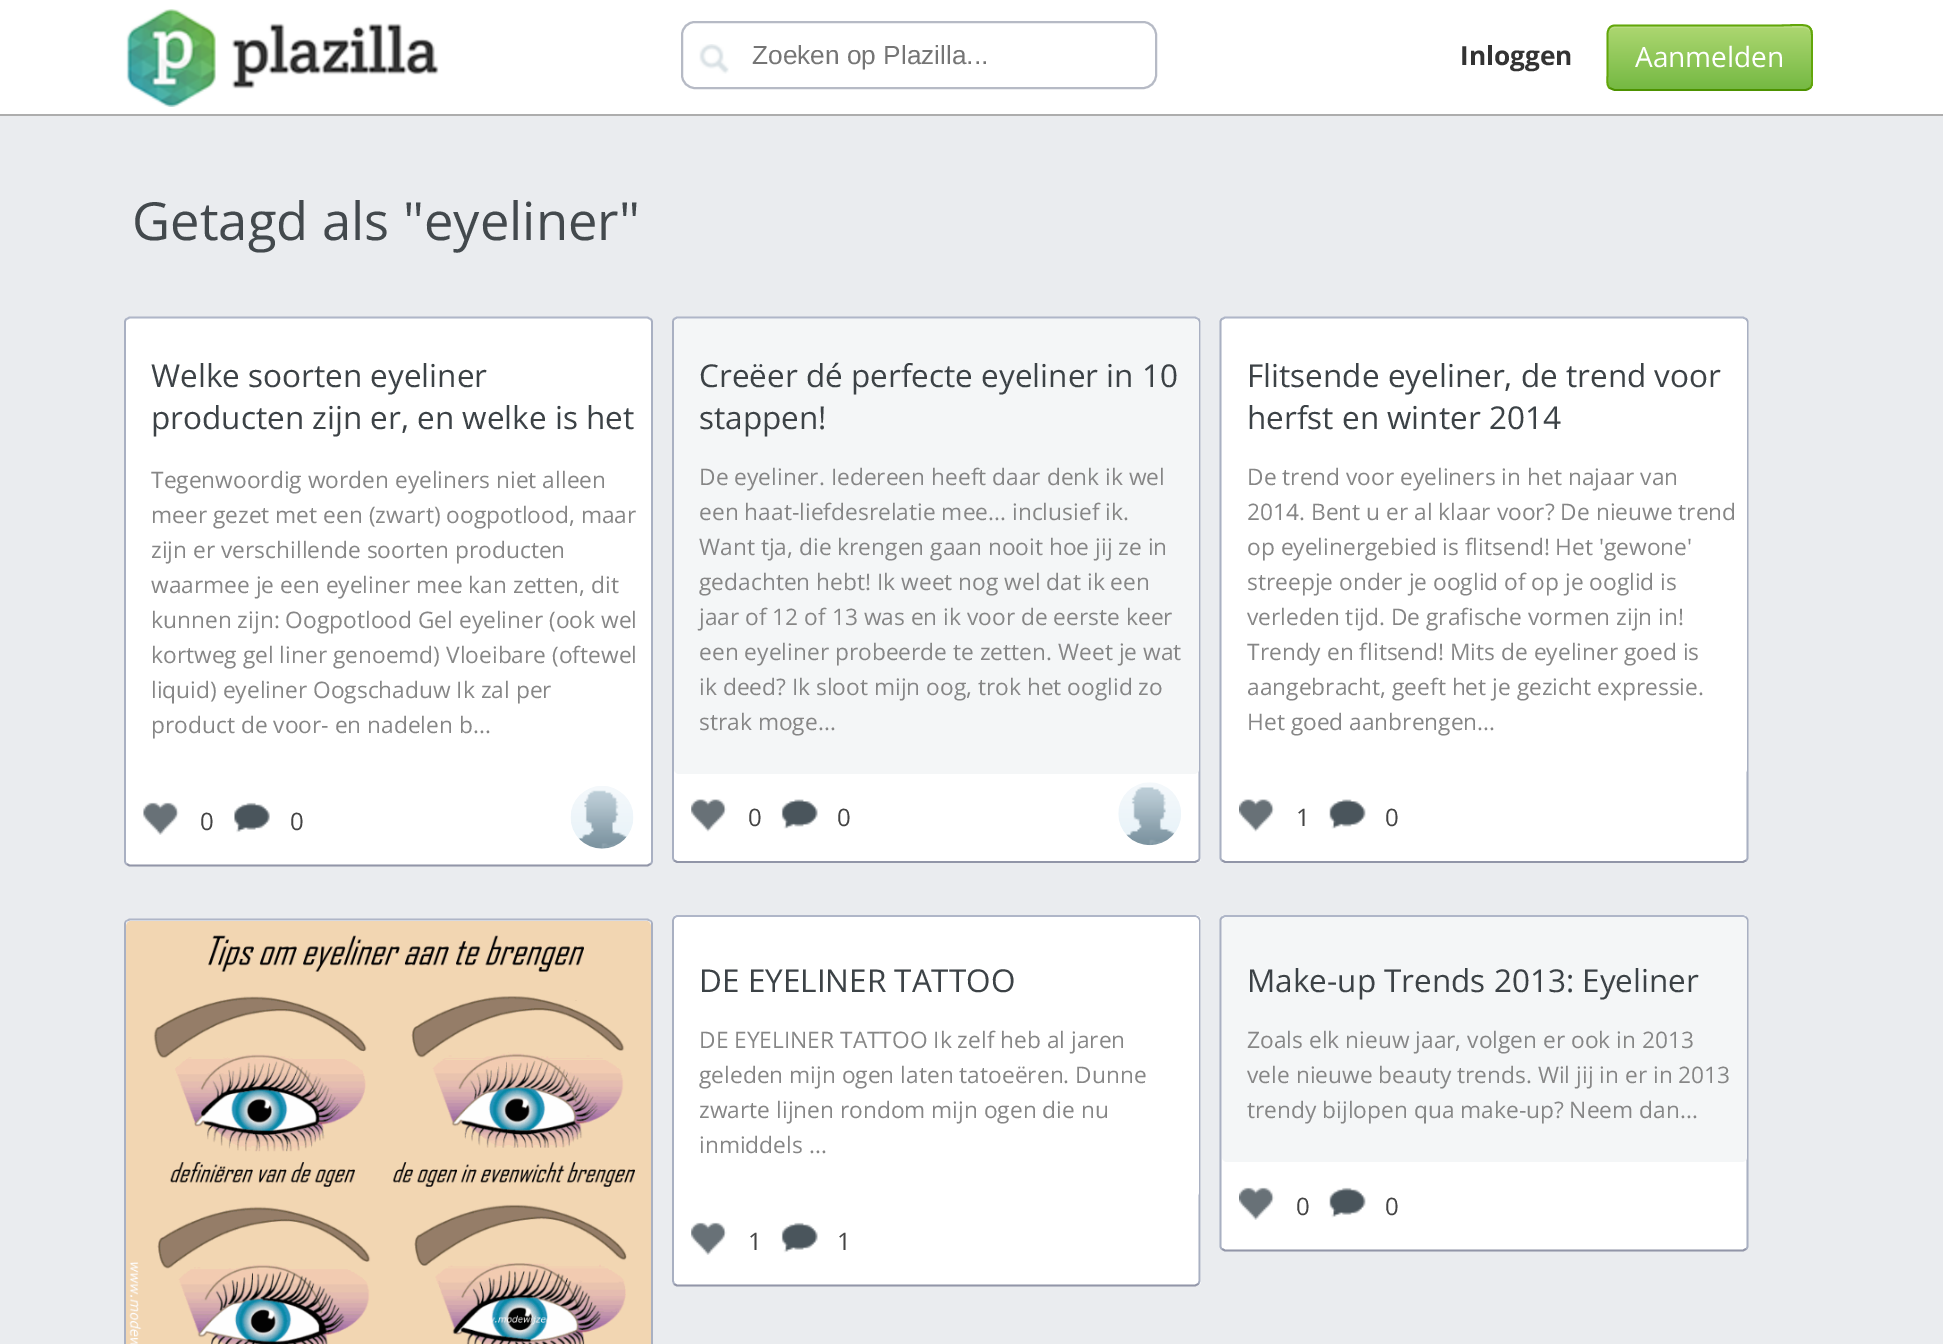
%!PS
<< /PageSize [1943 1344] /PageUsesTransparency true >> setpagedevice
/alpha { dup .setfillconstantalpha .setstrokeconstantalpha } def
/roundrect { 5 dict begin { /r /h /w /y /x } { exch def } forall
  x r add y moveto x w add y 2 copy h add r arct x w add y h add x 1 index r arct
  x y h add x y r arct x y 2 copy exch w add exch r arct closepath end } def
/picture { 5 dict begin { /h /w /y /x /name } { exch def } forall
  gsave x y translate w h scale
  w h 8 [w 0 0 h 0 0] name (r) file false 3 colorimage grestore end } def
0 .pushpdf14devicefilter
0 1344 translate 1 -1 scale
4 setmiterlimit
0.918 0.925 0.937 setrgbcolor
0 0 1943 1344 rectfill
1 setgray
0 0 1943 114 rectfill
0.678 setgray
0 114 1943 2 rectfill
(img1.rgb) 126 9 313 98 picture
0.714 0.729 0.773 setrgbcolor
2 setlinewidth
682 22 474 66 13 roundrect stroke
(img2.rgb) 699 44 30 30 picture
/LiberationSans-Regular [26.25 0 0 -26.25 0 0] selectfont
0.459 setgray
752 64 moveto (Zoeken op Plazilla...) show
/OpenSans-Bold [26.25 0 0 -26.25 0 0] selectfont
0.2 setgray
1460 65 moveto (Inloggen) show
gsave
1607 25 206 66 9 roundrect clip newpath
gsave newpath 1607 26 moveto 1813 26 lineto 1813 89 lineto 1607 89 lineto closepath clip newpath
<< /ShadingType 2 /ColorSpace /DeviceRGB /Coords [1710 26 1710 89] /Extend [true true] /Function << /FunctionType 2 /Domain [0 1] /C0 [0.678 0.843 0.443] /C1 [0.459 0.725 0.263] /N 1 >> >> shfill grestore
grestore
0.15 alpha
1 setgray
newpath 1615 28 moveto 1804 28 lineto 1808 28 1811 31 1811 35 curveto 1811 33 lineto 1811 29 1808 26 1804 26 curveto 1615 26 lineto 1611 26 1608 29 1608 33 curveto 1608 35 lineto 1608 31 1611 28 1615 28 curveto closepath fill
1 alpha
0.302 0.573 0 setrgbcolor
1.8 setlinewidth
newpath 1810 88 moveto 1808.5 89 1807 90 1805 90 curveto 1614.5 90 lineto 1609.5 88 lineto stroke
gsave
1425 9 388 121 rectclip
0.384 0.651 0.039 setrgbcolor
newpath 1609.5 88 moveto 1606 84.5 1607.5 78.5 1607.5 74 curveto 1607.5 41.5 lineto 1607.5 35.5 1606 25.5 1615 25.5 curveto 1773 25.5 lineto 1816.5 25.5 1812 18 1812 58 curveto 1812 74 lineto 1812 78.5 1813.5 84.5 1810 88 curveto stroke
grestore
/OpenSans-Regular [28 0 0 -28 0 0] selectfont
1 setgray
1635 67 moveto (Aanmelden) show
/OpenSans-Regular [52.5 0 0 -52.5 0 0] selectfont
0.263 0.286 0.302 setrgbcolor
132 240 moveto (Getagd als "eyeliner") show
1 setgray
124 317 529 549 5 roundrect fill
0.686 0.714 0.784 setrgbcolor
newpath 126.5 319 moveto 129.5 317.5 lineto 647.5 317.5 lineto 650.5 319 lineto stroke
0.663 0.69 0.761 setrgbcolor
newpath 650.5 319 moveto 651.5 319.5 652 321 652 322 curveto 652 861 lineto 652 862 651.5 863.5 650.5 864 curveto stroke
0.573 0.588 0.659 setrgbcolor
newpath 650.5 864 moveto 647.5 865.5 lineto 129.5 865.5 lineto 126.5 864 lineto stroke
0.663 0.69 0.761 setrgbcolor
newpath 126.5 864 moveto 125.5 863.5 125 862 125 861 curveto 125 322 lineto 125 321 125.5 319.5 126.5 319 curveto stroke
/OpenSans-Regular [31.5 0 0 -31.5 0 0] selectfont
0.235 0.259 0.275 setrgbcolor
151 387 moveto (Welke soorten eyeliner) show
151 429 moveto (producten zijn er, en welke is het) show
/OpenSans-Regular [22.75 0 0 -22.75 0 0] selectfont
0.525 setgray
151 488 moveto (Tegenwoordig worden eyeliners niet alleen) show
151 523 moveto (meer gezet met een \(zwart\) oogpotlood, maar) show
151 558 moveto (zijn er verschillende soorten producten) show
151 593 moveto (waarmee je een eyeliner mee kan zetten, dit) show
151 628 moveto (kunnen zijn: Oogpotlood Gel eyeliner \(ook wel) show
151 663 moveto (kortweg gel liner genoemd\) Vloeibare \(oftewel) show
151 698 moveto (liquid\) eyeliner Oogschaduw Ik zal per) show
151 733 moveto (product de voor- en nadelen b...) show
(img3.rgb) 143 802 36 33 picture
/OpenSans-Regular [24 0 0 -24 0 0] selectfont
0.267 setgray
200 830 moveto (0) show
(img4.rgb) 234 802 36 31 picture
290 830 moveto (0) show
(img5.rgb) 570 786 64 63 picture
1 setgray
672 317 529 546 5 roundrect fill
0.686 0.714 0.784 setrgbcolor
newpath 674 319 moveto 677 317.5 lineto 1195 317.5 lineto 1198.5 319 lineto stroke
0.663 0.69 0.761 setrgbcolor
newpath 1198.5 319 moveto 1199 319.5 1199.5 321 1199.5 322 curveto 1199.5 857.5 lineto 1199.5 858.5 1199 860 1198.5 860.5 curveto stroke
0.573 0.588 0.659 setrgbcolor
newpath 1198.5 860.5 moveto 1195 862 lineto 677 862 lineto 674 860.5 lineto stroke
0.663 0.69 0.761 setrgbcolor
newpath 674 860.5 moveto 673.5 860 673 858.5 673 857.5 curveto 673 322 lineto 673 321 673.5 319.5 674 319 curveto stroke
gsave
674 319 525 542 4 roundrect clip newpath
0.957 0.965 0.969 setrgbcolor
674 319 525 455 5 roundrect fill
grestore
/OpenSans-Regular [31.5 0 0 -31.5 0 0] selectfont
0.235 0.259 0.275 setrgbcolor
699 387 moveto (Creëer dé perfecte eyeliner in 10) show
699 429 moveto (stappen!) show
/OpenSans-Regular [22.75 0 0 -22.75 0 0] selectfont
0.525 setgray
699 485 moveto (De eyeliner. Iedereen heeft daar denk ik wel) show
699 520 moveto (een haat-liefdesrelatie mee... inclusief ik.) show
699 555 moveto (Want tja, die krengen gaan nooit hoe jij ze in) show
699 590 moveto (gedachten hebt! Ik weet nog wel dat ik een) show
699 625 moveto (jaar of 12 of 13 was en ik voor de eerste keer) show
699 660 moveto (een eyeliner probeerde te zetten. Weet je wat) show
699 695 moveto (ik deed? Ik sloot mijn oog, trok het ooglid zo) show
699 730 moveto (strak moge...) show
(img6.rgb) 691 799 36 33 picture
/OpenSans-Regular [24 0 0 -24 0 0] selectfont
0.267 setgray
748 826 moveto (0) show
(img7.rgb) 781 799 37 30 picture
837 826 moveto (0) show
(img8.rgb) 1118 782 63 64 picture
1 setgray
1220 317 528 546 5 roundrect fill
0.686 0.714 0.784 setrgbcolor
newpath 1222 319 moveto 1225 317.5 lineto 1743 317.5 lineto 1746 319 lineto stroke
0.663 0.69 0.761 setrgbcolor
newpath 1746 319 moveto 1747 319.5 1747.5 321 1747.5 322 curveto 1747.5 857.5 lineto 1747.5 858.5 1747 860 1746 860.5 curveto stroke
0.573 0.588 0.659 setrgbcolor
newpath 1746 860.5 moveto 1743 862 lineto 1225 862 lineto 1222 860.5 lineto stroke
0.663 0.69 0.761 setrgbcolor
newpath 1222 860.5 moveto 1221 860 1220.5 858.5 1220.5 857.5 curveto 1220.5 322 lineto 1220.5 321 1221 319.5 1222 319 curveto stroke
gsave
1222 319 525 542 4 roundrect clip newpath
1 setgray
1222 319 525 455 5 roundrect fill
grestore
/OpenSans-Regular [31.5 0 0 -31.5 0 0] selectfont
0.235 0.259 0.275 setrgbcolor
1247 387 moveto (Flitsende eyeliner, de trend voor) show
1247 429 moveto (herfst en winter 2014) show
/OpenSans-Regular [22.75 0 0 -22.75 0 0] selectfont
0.525 setgray
1247 485 moveto (De trend voor eyeliners in het najaar van) show
1247 520 moveto (2014. Bent u er al klaar voor? De nieuwe trend) show
1247 555 moveto (op eyelinergebied is flitsend! Het 'gewone') show
1247 590 moveto (streepje onder je ooglid of op je ooglid is) show
1247 625 moveto (verleden tijd. De grafische vormen zijn in!) show
1247 660 moveto (Trendy en flitsend! Mits de eyeliner goed is) show
1247 695 moveto (aangebracht, geeft het je gezicht expressie.) show
1247 730 moveto (Het goed aanbrengen...) show
(img9.rgb) 1239 799 36 33 picture
/OpenSans-Regular [24 0 0 -24 0 0] selectfont
0.267 setgray
1296 826 moveto (1) show
(img10.rgb) 1329 799 37 30 picture
1385 826 moveto (0) show
1 setgray
124 919 529 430 5 roundrect fill
0.686 0.714 0.784 setrgbcolor
newpath 126.5 921 moveto 129.5 919.5 lineto 647.5 919.5 lineto 650.5 921 lineto stroke
0.663 0.69 0.761 setrgbcolor
newpath 650.5 921 moveto 651.5 921.5 652 923 652 924 curveto 652 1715 lineto 652 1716 651.5 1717.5 650.5 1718 curveto stroke
newpath 126.5 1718 moveto 125.5 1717.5 125 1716 125 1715 curveto 125 924 lineto 125 923 125.5 921.5 126.5 921 curveto stroke
(img11.rgb) 126 921 525 423 picture
1 setgray
672 915 529 371 5 roundrect fill
0.686 0.714 0.784 setrgbcolor
newpath 674 917.5 moveto 677 916 lineto 1195 916 lineto 1198.5 917.5 lineto stroke
0.663 0.69 0.761 setrgbcolor
newpath 1198.5 917.5 moveto 1199.5 920.5 lineto 1199.5 1281 lineto 1198.5 1284 lineto stroke
0.573 0.588 0.659 setrgbcolor
newpath 1198.5 1284 moveto 1195 1285.5 lineto 677 1285.5 lineto 674 1284 lineto stroke
0.663 0.69 0.761 setrgbcolor
newpath 674 1284 moveto 673 1281 lineto 673 920.5 lineto 674 917.5 lineto stroke
gsave
674 917 525 368 4 roundrect clip newpath
1 setgray
674 917 525 280 5 roundrect fill
grestore
/OpenSans-Regular [31.5 0 0 -31.5 0 0] selectfont
0.235 0.259 0.275 setrgbcolor
699 992 moveto (DE EYELINER TATTOO) show
/OpenSans-Regular [22.75 0 0 -22.75 0 0] selectfont
0.525 setgray
699 1048 moveto (DE EYELINER TATTOO Ik zelf heb al jaren) show
699 1083 moveto (geleden mijn ogen laten tatoeëren. Dunne) show
699 1118 moveto (zwarte lijnen rondom mijn ogen die nu) show
699 1153 moveto (inmiddels ...) show
(img12.rgb) 691 1222 36 33 picture
/OpenSans-Regular [24 0 0 -24 0 0] selectfont
0.267 setgray
748 1250 moveto (1) show
(img13.rgb) 781 1222 37 31 picture
837 1250 moveto (1) show
1 setgray
1220 915 528 336 5 roundrect fill
0.686 0.714 0.784 setrgbcolor
newpath 1222 917.5 moveto 1225 916 lineto 1743 916 lineto 1746 917.5 lineto stroke
0.663 0.69 0.761 setrgbcolor
newpath 1746 917.5 moveto 1747 918 1747.5 919.5 1747.5 920.5 curveto 1747.5 1246 lineto 1747.5 1247 1747 1248.5 1746 1249 curveto stroke
0.573 0.588 0.659 setrgbcolor
newpath 1746 1249 moveto 1743 1250.5 lineto 1225 1250.5 lineto 1222 1249 lineto stroke
0.663 0.69 0.761 setrgbcolor
newpath 1222 1249 moveto 1221 1248.5 1220.5 1247 1220.5 1246 curveto 1220.5 920.5 lineto 1220.5 919.5 1221 918 1222 917.5 curveto stroke
gsave
1222 917 525 333 4 roundrect clip newpath
0.957 0.965 0.969 setrgbcolor
1222 917 525 245 5 roundrect fill
grestore
/OpenSans-Regular [31.5 0 0 -31.5 0 0] selectfont
0.235 0.259 0.275 setrgbcolor
1247 992 moveto (Make-up Trends 2013: Eyeliner) show
/OpenSans-Regular [22.75 0 0 -22.75 0 0] selectfont
0.525 setgray
1247 1048 moveto (Zoals elk nieuw jaar, volgen er ook in 2013) show
1247 1083 moveto (vele nieuwe beauty trends. Wil jij in er in 2013) show
1247 1118 moveto (trendy bijlopen qua make-up? Neem dan...) show
(img14.rgb) 1239 1187 36 33 picture
/OpenSans-Regular [24 0 0 -24 0 0] selectfont
0.267 setgray
1296 1215 moveto (0) show
(img15.rgb) 1329 1187 37 31 picture
1385 1215 moveto (0) show
.poppdf14devicefilter showpage
